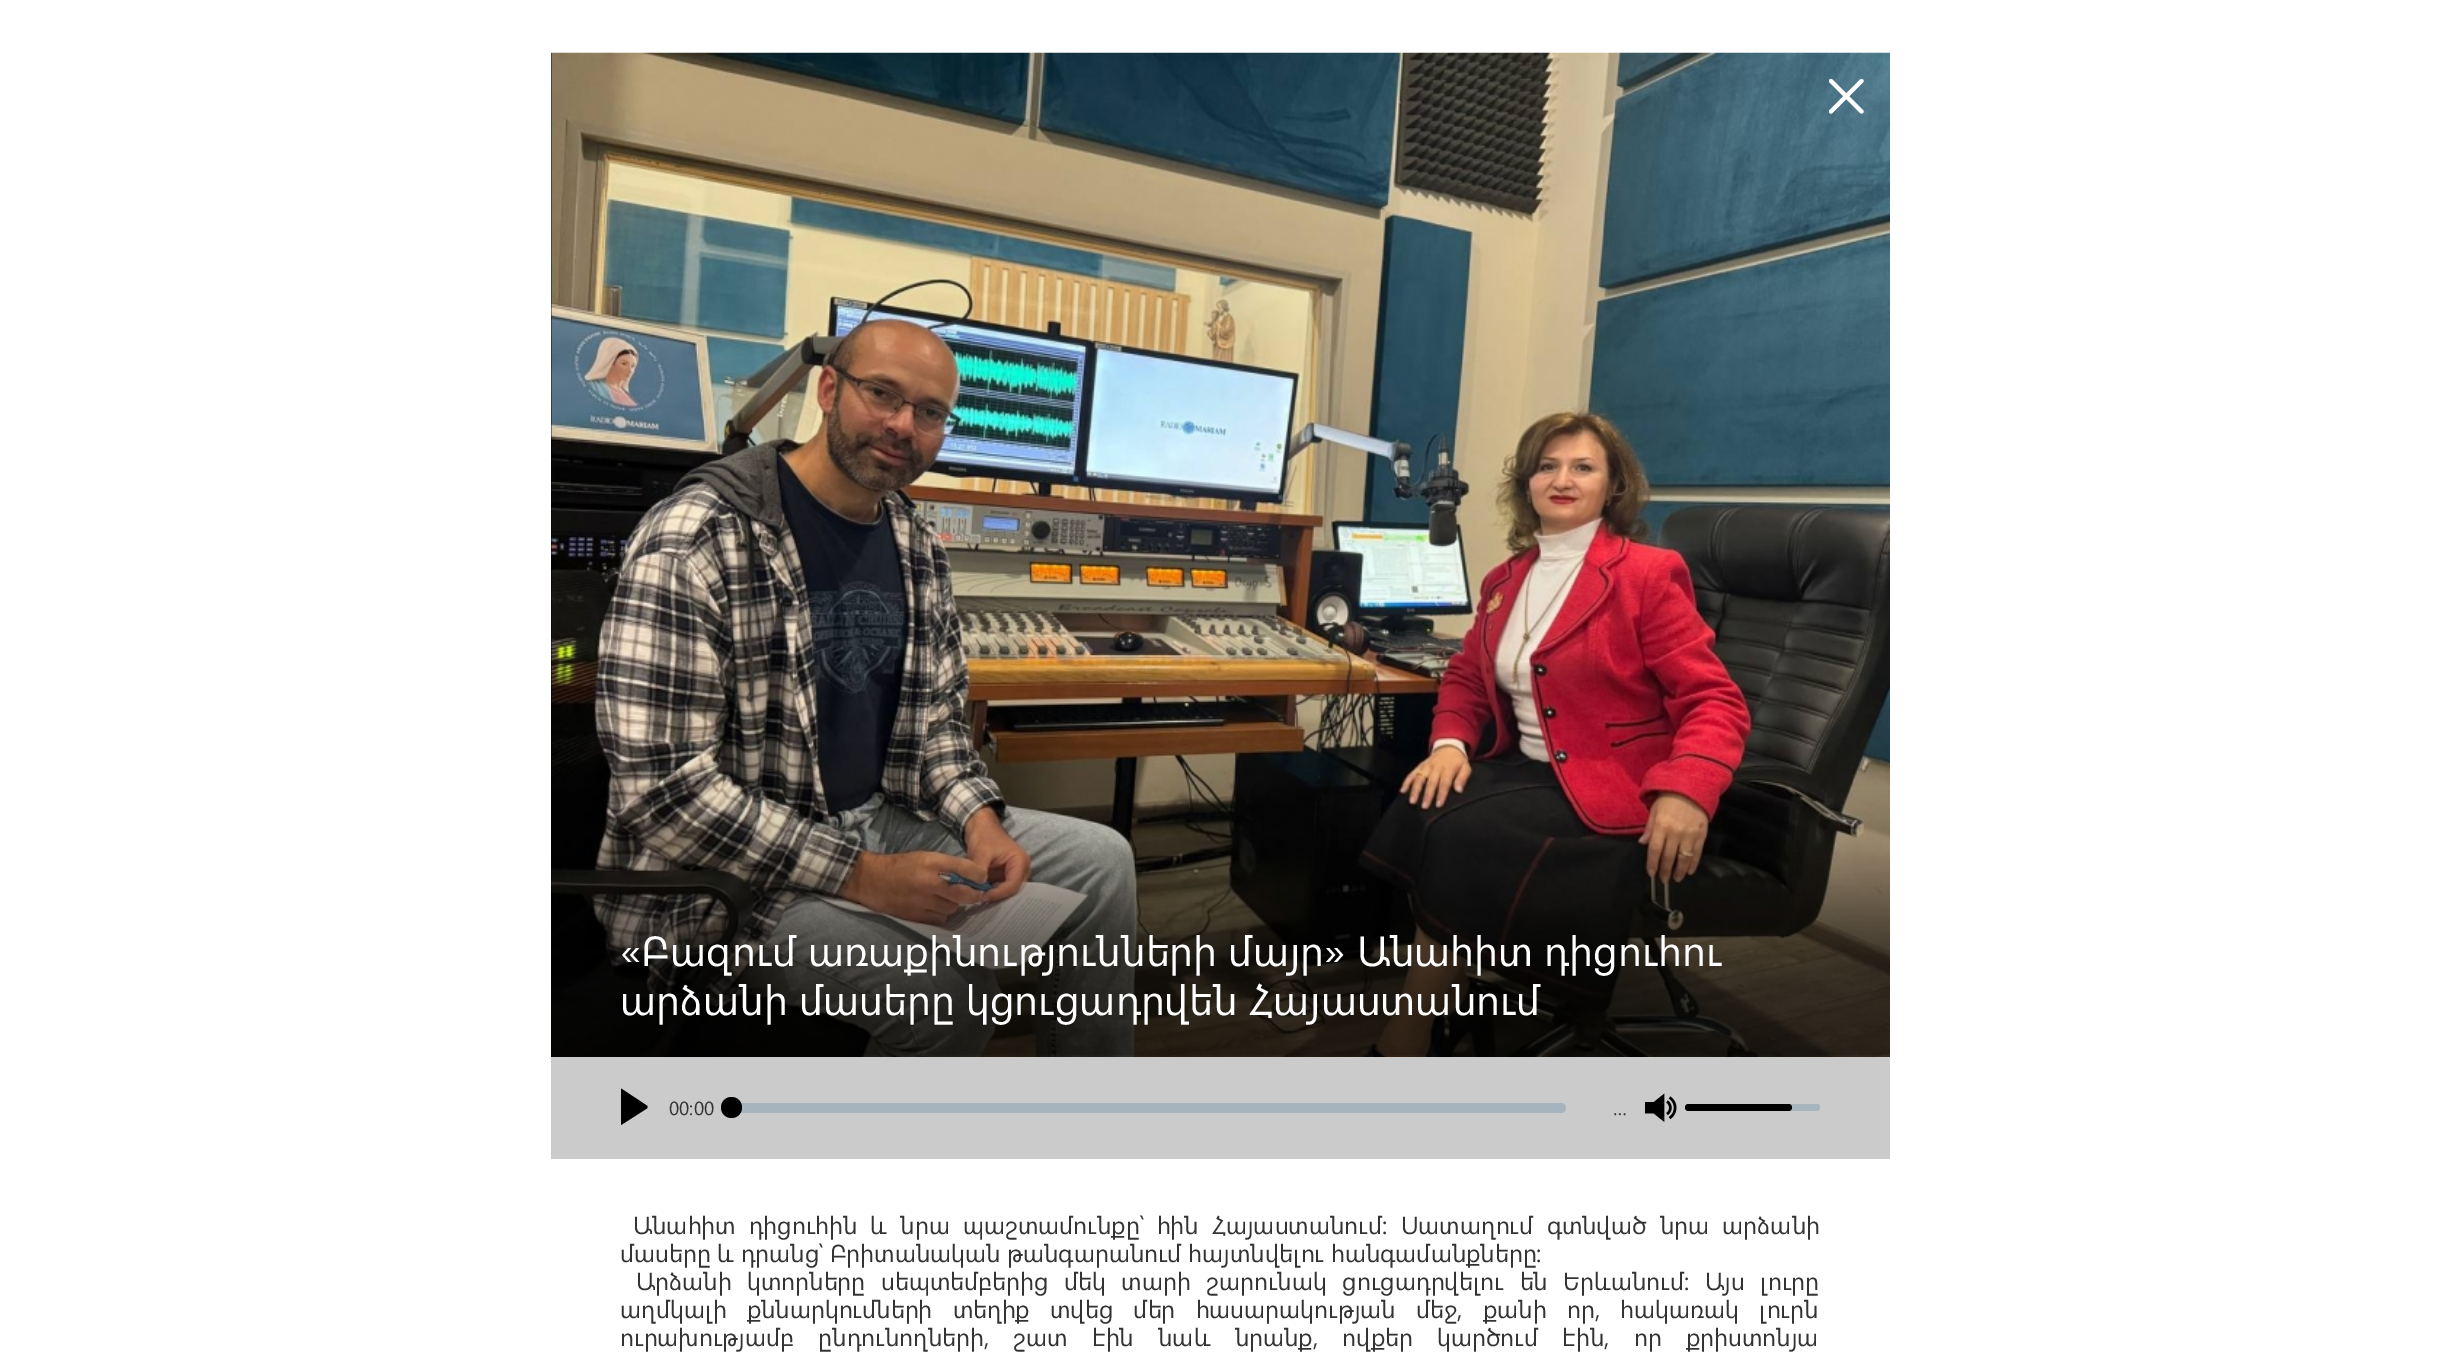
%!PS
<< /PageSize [2439 1370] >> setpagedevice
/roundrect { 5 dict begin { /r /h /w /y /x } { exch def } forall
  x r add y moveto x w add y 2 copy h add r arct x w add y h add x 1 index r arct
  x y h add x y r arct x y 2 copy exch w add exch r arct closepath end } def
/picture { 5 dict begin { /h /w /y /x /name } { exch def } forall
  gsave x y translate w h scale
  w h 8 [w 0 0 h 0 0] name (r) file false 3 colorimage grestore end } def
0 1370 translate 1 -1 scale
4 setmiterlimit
1 setgray
0 0 2439 1370 rectfill
0 setgray
551 53 1 1004 rectfill
(img1.rgb) 551 52 1339 1005 picture
(img2.rgb) 551 743 1339 314 picture
(img3.rgb) 1829 79 35 35 picture
/SegoeUI-Regular [42 0 0 -42 0 0] selectfont
1 setgray
620 966 moveto («Բազում առաքինությունների մայր» Անահիտ դիցուհու) show
620 1015 moveto (արձանի մասերը կցուցադրվեն Հայաստանում) show
0.796 setgray
551 1057 1339 102 rectfill
0 setgray
newpath 621 1125 moveto 621 1088.5 lineto 647.5 1106 lineto 647.5 1108 lineto closepath fill
0.651 0.706 0.741 setrgbcolor
732 1103 834 10 5 roundrect fill
0 setgray
newpath 731.5 1107.5 10.5 0 360 arc closepath fill
(img4.rgb) 1645 1093 32 29 picture
0.651 0.706 0.741 setrgbcolor
1685 1104 135 7 3.5 roundrect fill
0 setgray
1685 1104 107 7 3.5 roundrect fill
/SegoeUI-Regular [19 0 0 -19 0 0] selectfont
0.2 setgray
669 1115 moveto (00:00) show
1613 1115 moveto (…) show
/SegoeUI-Regular [24.5 0 0 -24.5 0 0] selectfont
633 1234 moveto 6.5 0 32 (Անահիտ դիցուհին և նրա պաշտամունքը՝ հին Հայաստանում։ Սատաղում գտնված նրա արձանի) widthshow
620 1262 moveto (մասերը և դրանց՝ Բրիտանական թանգարանում հայտնվելու հանգամանքները։) show
636 1290 moveto 9 0 32 (Արձանի կտորները սեպտեմբերից մեկ տարի շարունակ ցուցադրվելու են Երևանում։ Այս լուրը) widthshow
620 1318 moveto 13.5 0 32 (աղմկալի քննարկումների տեղիք տվեց մեր հասարակության մեջ, քանի որ, հակառակ լուրն) widthshow
620 1346 moveto 17.6 0 32 (ուրախությամբ ընդունողների, շատ էին նաև նրանք, ովքեր կարծում էին, որ քրիստոնյա) widthshow
showpage
